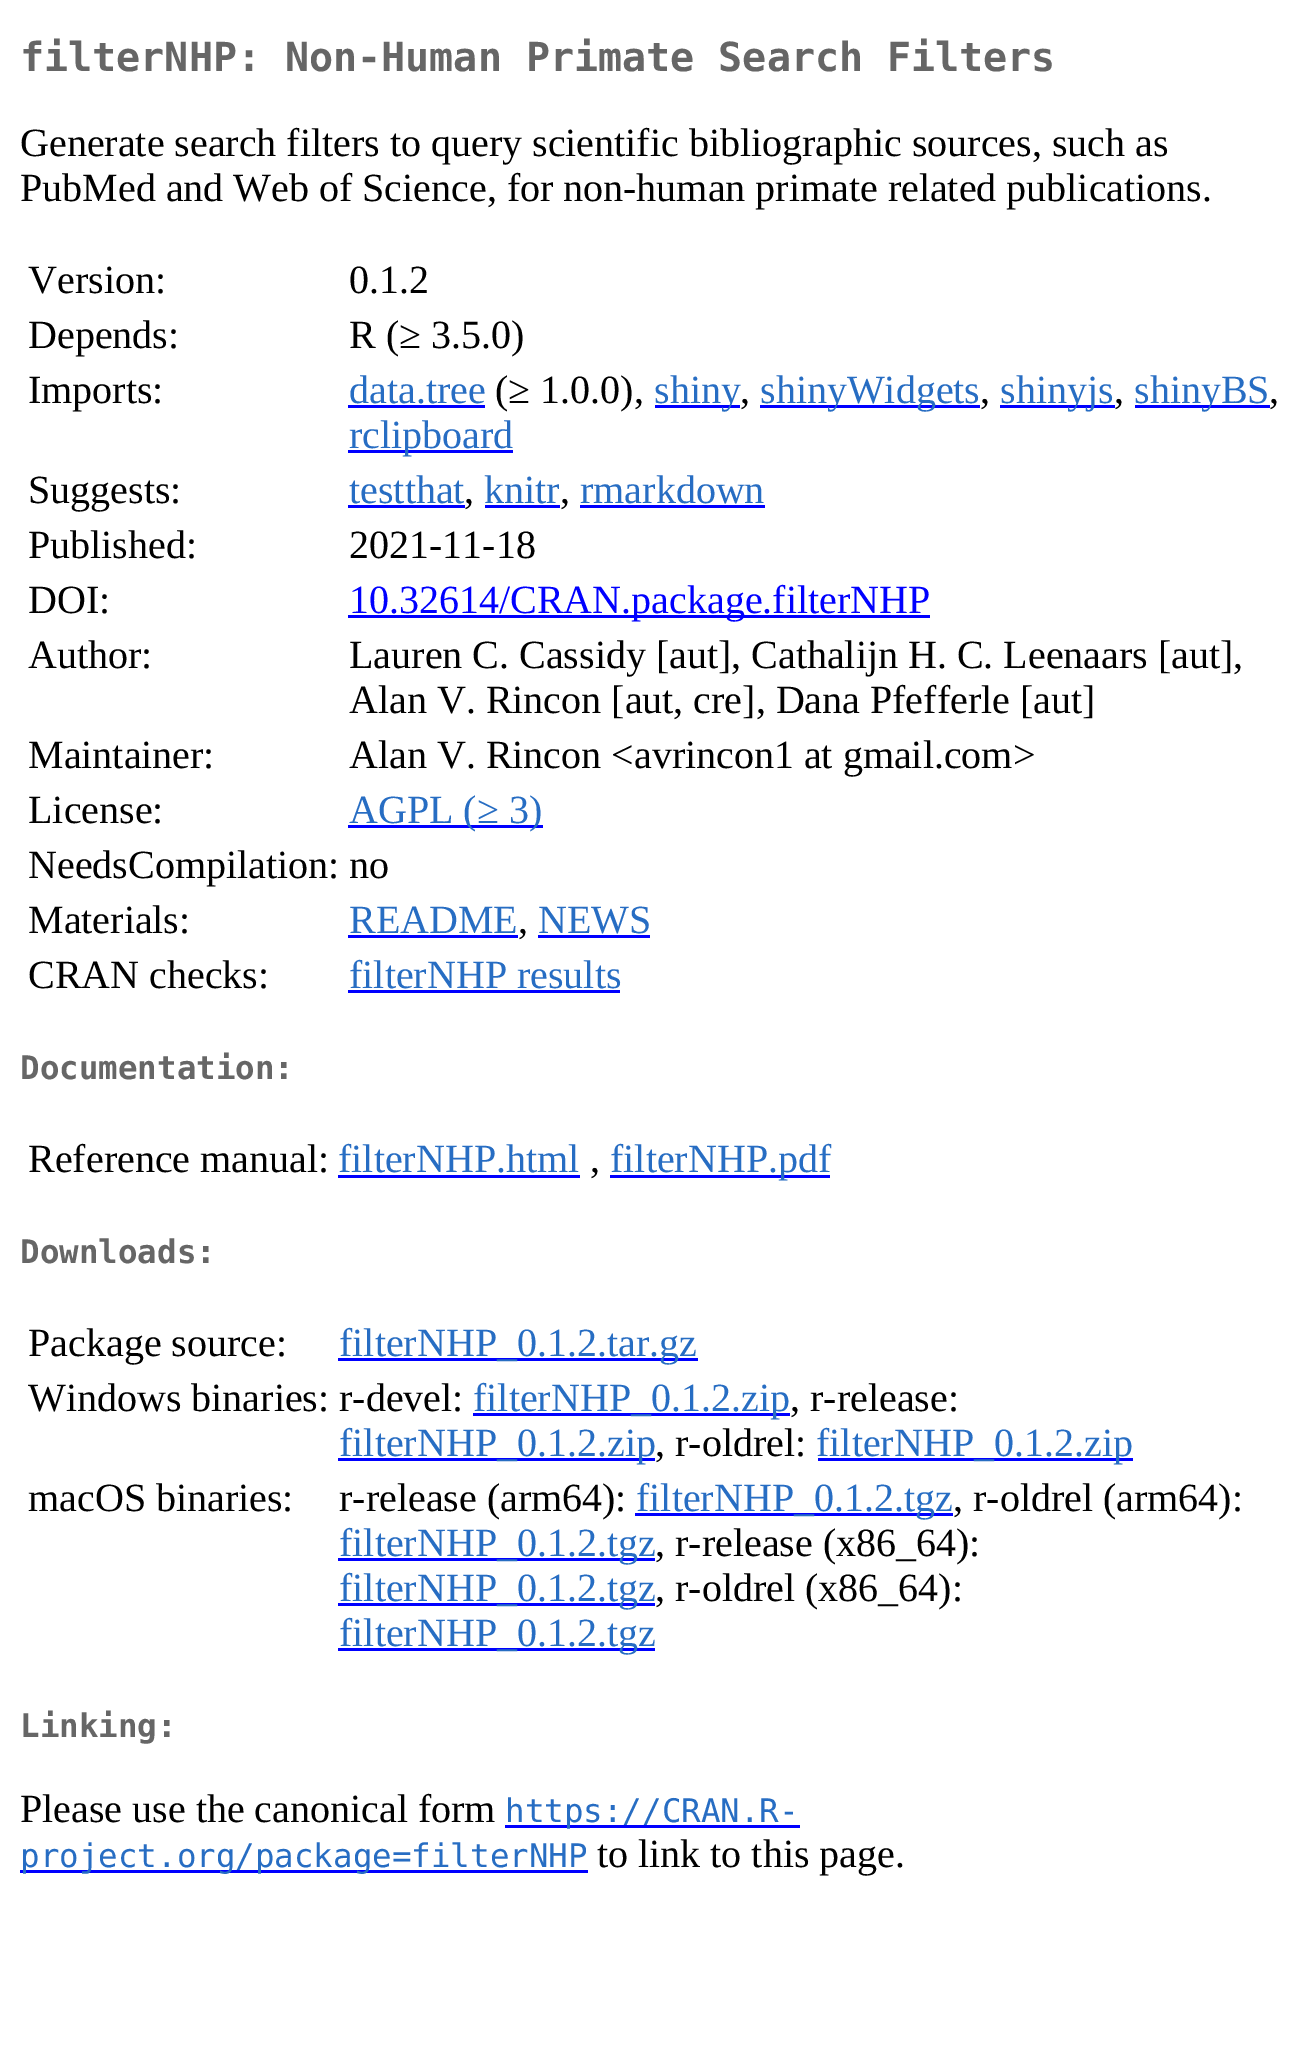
%!PS
<< /PageSize [1309 2059] >> setpagedevice
0 2059 translate 1 -1 scale
4 setmiterlimit
1 setgray
0 0 1309 2059 rectfill
/DejaVuSansMono-Bold [40 0 0 -40 0 0] selectfont
0.4 setgray
20 71 moveto (filterNHP: Non-Human Primate Search Filters) show
/LiberationSerif-Regular [40 0 0 -40 0 0] selectfont
0 setgray
20 156 moveto (Generate search filters to query scientific bibliographic sources, such as) show
20 201 moveto (PubMed and Web of Science, for non-human primate related publications.) show
28 293 moveto (Version:) show
349 293 moveto (0.1.2) show
28 348 moveto (Depends:) show
349 348 moveto (R \(≥ 3.5.0\)) show
28 403 moveto (Imports:) show
0.153 0.427 0.765 setrgbcolor
349 403 moveto (data.tree) show
0 0 1 setrgbcolor
348 405 137 3 rectfill
0 setgray
495 403 moveto (\(≥ 1.0.0\),) show
0 0 1 setrgbcolor
655 405 85 3 rectfill
0.153 0.427 0.765 setrgbcolor
654 403 moveto (shiny) show
0 setgray
740 403 moveto (,) show
0 0 1 setrgbcolor
760 405 220 3 rectfill
0.153 0.427 0.765 setrgbcolor
760 403 moveto (shinyWidgets) show
0 setgray
980 403 moveto (,) show
0 0 1 setrgbcolor
1000 405 115 3 rectfill
0.153 0.427 0.765 setrgbcolor
1000 403 moveto (shinyjs) show
0 setgray
1114 403 moveto (,) show
0 0 1 setrgbcolor
1135 405 135 3 rectfill
0.153 0.427 0.765 setrgbcolor
1134 403 moveto (shinyBS) show
0 setgray
1269 403 moveto (,) show
0 0 1 setrgbcolor
348 450 165 3 rectfill
0.153 0.427 0.765 setrgbcolor
349 448 moveto (rclipboard) show
0 setgray
28 503 moveto (Suggests:) show
0.153 0.427 0.765 setrgbcolor
349 503 moveto (testthat) show
0 0 1 setrgbcolor
348 505 117 3 rectfill
0 setgray
464 503 moveto (,) show
0.153 0.427 0.765 setrgbcolor
484 503 moveto (knitr) show
0 0 1 setrgbcolor
485 505 75 3 rectfill
0 setgray
560 503 moveto (,) show
0.153 0.427 0.765 setrgbcolor
580 503 moveto (rmarkdown) show
0 0 1 setrgbcolor
580 505 185 3 rectfill
0 setgray
28 558 moveto (Published:) show
349 558 moveto (2021-11-18) show
28 613 moveto (DOI:) show
0 0 1 setrgbcolor
348 615 582 3 rectfill
349 613 moveto (10.32614/CRAN.package.filterNHP) show
0 setgray
28 668 moveto (Author:) show
349 668 moveto (Lauren C. Cassidy [aut], Cathalijn H. C. Leenaars [aut],) show
349 713 moveto (Alan V. Rincon [aut, cre], Dana Pfefferle [aut]) show
28 768 moveto (Maintainer:) show
349 768 moveto (Alan V. Rincon <avrincon1 at gmail.com>) show
28 823 moveto (License:) show
0 0 1 setrgbcolor
348 825 195 3 rectfill
0.153 0.427 0.765 setrgbcolor
349 823 moveto (AGPL \(≥ 3\)) show
0 setgray
28 878 moveto (NeedsCompilation: no) show
28 933 moveto (Materials:) show
0.153 0.427 0.765 setrgbcolor
349 933 moveto (README) show
0 0 1 setrgbcolor
348 935 170 3 rectfill
0 setgray
518 933 moveto (,) show
0.153 0.427 0.765 setrgbcolor
538 933 moveto (NEWS) show
0 0 1 setrgbcolor
538 935 112 3 rectfill
0 setgray
28 988 moveto (CRAN checks:) show
0.153 0.427 0.765 setrgbcolor
349 988 moveto (filterNHP results) show
0 0 1 setrgbcolor
348 990 272 3 rectfill
/DejaVuSansMono-Bold [32.5 0 0 -32.5 0 0] selectfont
0.4 setgray
20 1079 moveto (Documentation:) show
/LiberationSerif-Regular [40 0 0 -40 0 0] selectfont
0 setgray
28 1172 moveto (Reference manual:) show
0.153 0.427 0.765 setrgbcolor
338 1172 moveto (filterNHP.html) show
0 0 1 setrgbcolor
338 1175 242 3 rectfill
0 setgray
590 1172 moveto (,) show
0 0 1 setrgbcolor
610 1175 220 3 rectfill
0.153 0.427 0.765 setrgbcolor
610 1172 moveto (filterNHP.pdf) show
/DejaVuSansMono-Bold [32.5 0 0 -32.5 0 0] selectfont
0.4 setgray
20 1263 moveto (Downloads:) show
/LiberationSerif-Regular [40 0 0 -40 0 0] selectfont
0 setgray
28 1356 moveto (Package source:) show
0 0 1 setrgbcolor
338 1358 360 3 rectfill
0.153 0.427 0.765 setrgbcolor
339 1356 moveto (filterNHP_0.1.2.tar.gz) show
0 setgray
28 1411 moveto (Windows binaries: r-devel:) show
0 0 1 setrgbcolor
473 1413 317 3 rectfill
0.153 0.427 0.765 setrgbcolor
473 1411 moveto (filterNHP_0.1.2.zip) show
0 setgray
790 1411 moveto (, r-release:) show
0 0 1 setrgbcolor
338 1458 317 3 rectfill
0.153 0.427 0.765 setrgbcolor
339 1456 moveto (filterNHP_0.1.2.zip) show
0 setgray
655 1456 moveto (, r-oldrel:) show
0 0 1 setrgbcolor
818 1458 315 3 rectfill
0.153 0.427 0.765 setrgbcolor
816 1456 moveto (filterNHP_0.1.2.zip) show
0 setgray
28 1511 moveto (macOS binaries:) show
339 1511 moveto (r-release \(arm64\):) show
0 0 1 setrgbcolor
635 1513 318 3 rectfill
0.153 0.427 0.765 setrgbcolor
636 1511 moveto (filterNHP_0.1.2.tgz) show
0 setgray
953 1511 moveto (, r-oldrel \(arm64\):) show
0 0 1 setrgbcolor
338 1558 317 3 rectfill
0.153 0.427 0.765 setrgbcolor
339 1556 moveto (filterNHP_0.1.2.tgz) show
0 setgray
655 1556 moveto (, r-release \(x86_64\):) show
0 0 1 setrgbcolor
338 1603 317 3 rectfill
0.153 0.427 0.765 setrgbcolor
339 1601 moveto (filterNHP_0.1.2.tgz) show
0 setgray
655 1601 moveto (, r-oldrel \(x86_64\):) show
0 0 1 setrgbcolor
338 1648 317 3 rectfill
0.153 0.427 0.765 setrgbcolor
339 1646 moveto (filterNHP_0.1.2.tgz) show
/DejaVuSansMono-Bold [32.5 0 0 -32.5 0 0] selectfont
0.4 setgray
20 1737 moveto (Linking:) show
/LiberationSerif-Regular [40 0 0 -40 0 0] selectfont
0 setgray
20 1822 moveto (Please use the canonical form) show
0 0 1 setrgbcolor
505 1825 295 3 rectfill
/DejaVuSansMono-Regular [32.5 0 0 -32.5 0 0] selectfont
0.153 0.427 0.765 setrgbcolor
505 1822 moveto (https://CRAN.R-) show
0 0 1 setrgbcolor
20 1870 568 3 rectfill
0.153 0.427 0.765 setrgbcolor
20 1867 moveto (project.org/package=filterNHP) show
/LiberationSerif-Regular [40 0 0 -40 0 0] selectfont
0 setgray
597 1867 moveto (to link to this page.) show
showpage
